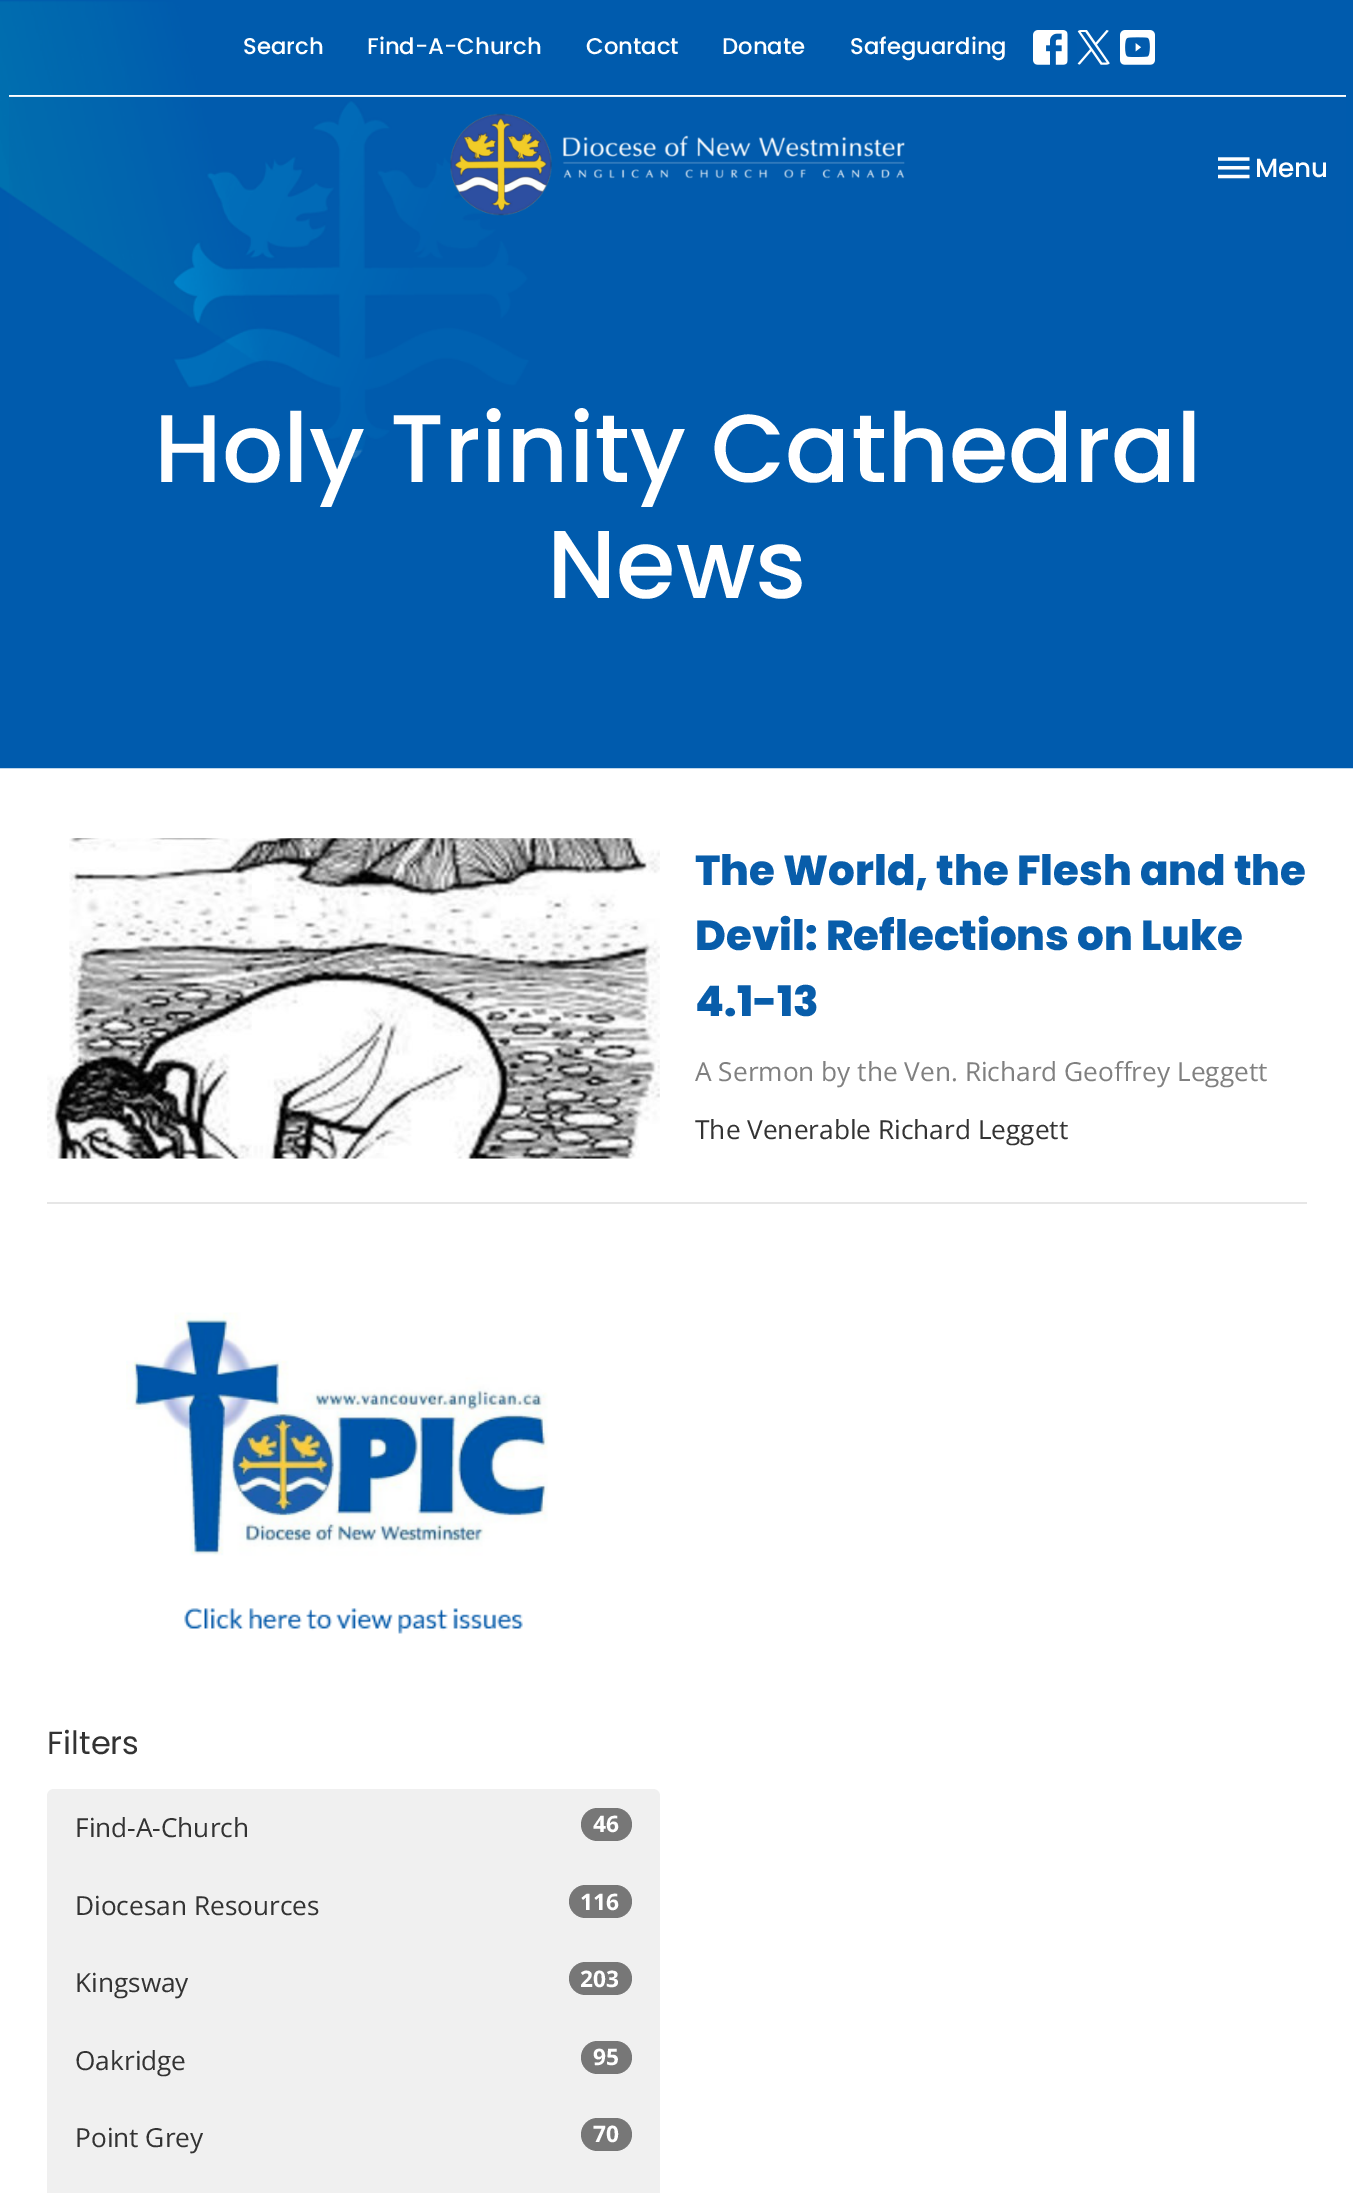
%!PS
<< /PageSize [1353 2193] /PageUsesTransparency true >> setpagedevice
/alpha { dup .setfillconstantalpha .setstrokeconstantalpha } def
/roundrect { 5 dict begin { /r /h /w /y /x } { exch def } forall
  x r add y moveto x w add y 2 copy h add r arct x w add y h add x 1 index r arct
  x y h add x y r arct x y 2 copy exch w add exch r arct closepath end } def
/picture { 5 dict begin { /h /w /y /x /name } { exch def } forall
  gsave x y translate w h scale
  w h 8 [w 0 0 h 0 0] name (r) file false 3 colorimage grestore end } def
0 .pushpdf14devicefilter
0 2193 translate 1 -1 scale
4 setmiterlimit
1 setgray
0 0 1353 2193 rectfill
(img6.rgb) 0 0 1353 769 picture
9 95 1337 2 rectfill
/Poppins-Medium [22.75 0 0 -22.75 0 0] selectfont
243 54 moveto (Search) show
367 54 moveto (Find-A-Church) show
586 54 moveto (Contact) show
722 54 moveto (Donate) show
850 54 moveto (Safeguarding) show
(img1.rgb) 1033 30 35 35 picture
(img2.rgb) 1077 30 33 35 picture
(img3.rgb) 1120 30 35 35 picture
0.1 alpha
0.031 0.365 0.667 setrgbcolor
9 96 1337 154 rectfill
1 alpha
(img4.rgb) 450 113 455 103 picture
(img5.rgb) 1218 157 32 22 picture
/Poppins-Medium [26.25 0 0 -26.25 0 0] selectfont
1 setgray
1255 177 moveto (Menu) show
/Poppins-Medium [96.25 0 0 -96.25 0 0] selectfont
154 482 moveto (Holy Trinity Cathedral) show
547 598 moveto (News) show
0.902 setgray
47 1202 1260 2 rectfill
(img7.rgb) 47 838 613 321 picture
/Poppins-ExtraBold [42 0 0 -42 0 0] selectfont
0.031 0.365 0.667 setrgbcolor
695 885 moveto (The World, the Flesh and the) show
695 950 moveto (Devil: Reflections on Luke) show
695 1016 moveto (4.1-13) show
/OpenSans-Regular [26.25 0 0 -26.25 0 0] selectfont
0.502 setgray
695 1081 moveto (A Sermon by the Ven. Richard Geoffrey Leggett) show
0.2 setgray
695 1139 moveto (The Venerable Richard Leggett) show
(img8.rgb) 126 1312 422 322 picture
/Poppins-Regular [32 0 0 -32 0 0] selectfont
47 1754 moveto (Filters) show
0.941 setgray
newpath 54 1789 moveto 653 1789 lineto 657 1789 660 1792 660 1796 curveto 660 1867 lineto 47 1867 lineto 47 1796 lineto 47 1792 50 1789 54 1789 curveto closepath fill
/OpenSans-Regular [26.25 0 0 -26.25 0 0] selectfont
0.2 setgray
75 1837 moveto (Find-A-Church) show
0.467 setgray
581 1808 51 33 16.5 roundrect fill
/OpenSans-Bold [22.75 0 0 -22.75 0 0] selectfont
1 setgray
593 1832 moveto (46) show
0.941 setgray
47 1867 613 326 rectfill
/OpenSans-Regular [26.25 0 0 -26.25 0 0] selectfont
0.2 setgray
75 1915 moveto (Diocesan Resources) show
0.467 setgray
569 1885 63 33 16.5 roundrect fill
/OpenSans-Bold [22.75 0 0 -22.75 0 0] selectfont
1 setgray
580 1910 moveto (116) show
/OpenSans-Regular [26.25 0 0 -26.25 0 0] selectfont
0.2 setgray
75 1992 moveto (Kingsway) show
0.467 setgray
569 1962 63 33 16.5 roundrect fill
/OpenSans-Bold [22.75 0 0 -22.75 0 0] selectfont
1 setgray
580 1987 moveto (203) show
/OpenSans-Regular [26.25 0 0 -26.25 0 0] selectfont
0.2 setgray
75 2070 moveto (Oakridge) show
0.467 setgray
581 2041 51 33 16.5 roundrect fill
/OpenSans-Bold [22.75 0 0 -22.75 0 0] selectfont
1 setgray
593 2065 moveto (95) show
/OpenSans-Regular [26.25 0 0 -26.25 0 0] selectfont
0.2 setgray
75 2147 moveto (Point Grey) show
0.467 setgray
581 2118 51 33 16.5 roundrect fill
/OpenSans-Bold [22.75 0 0 -22.75 0 0] selectfont
1 setgray
593 2142 moveto (70) show
.poppdf14devicefilter showpage
